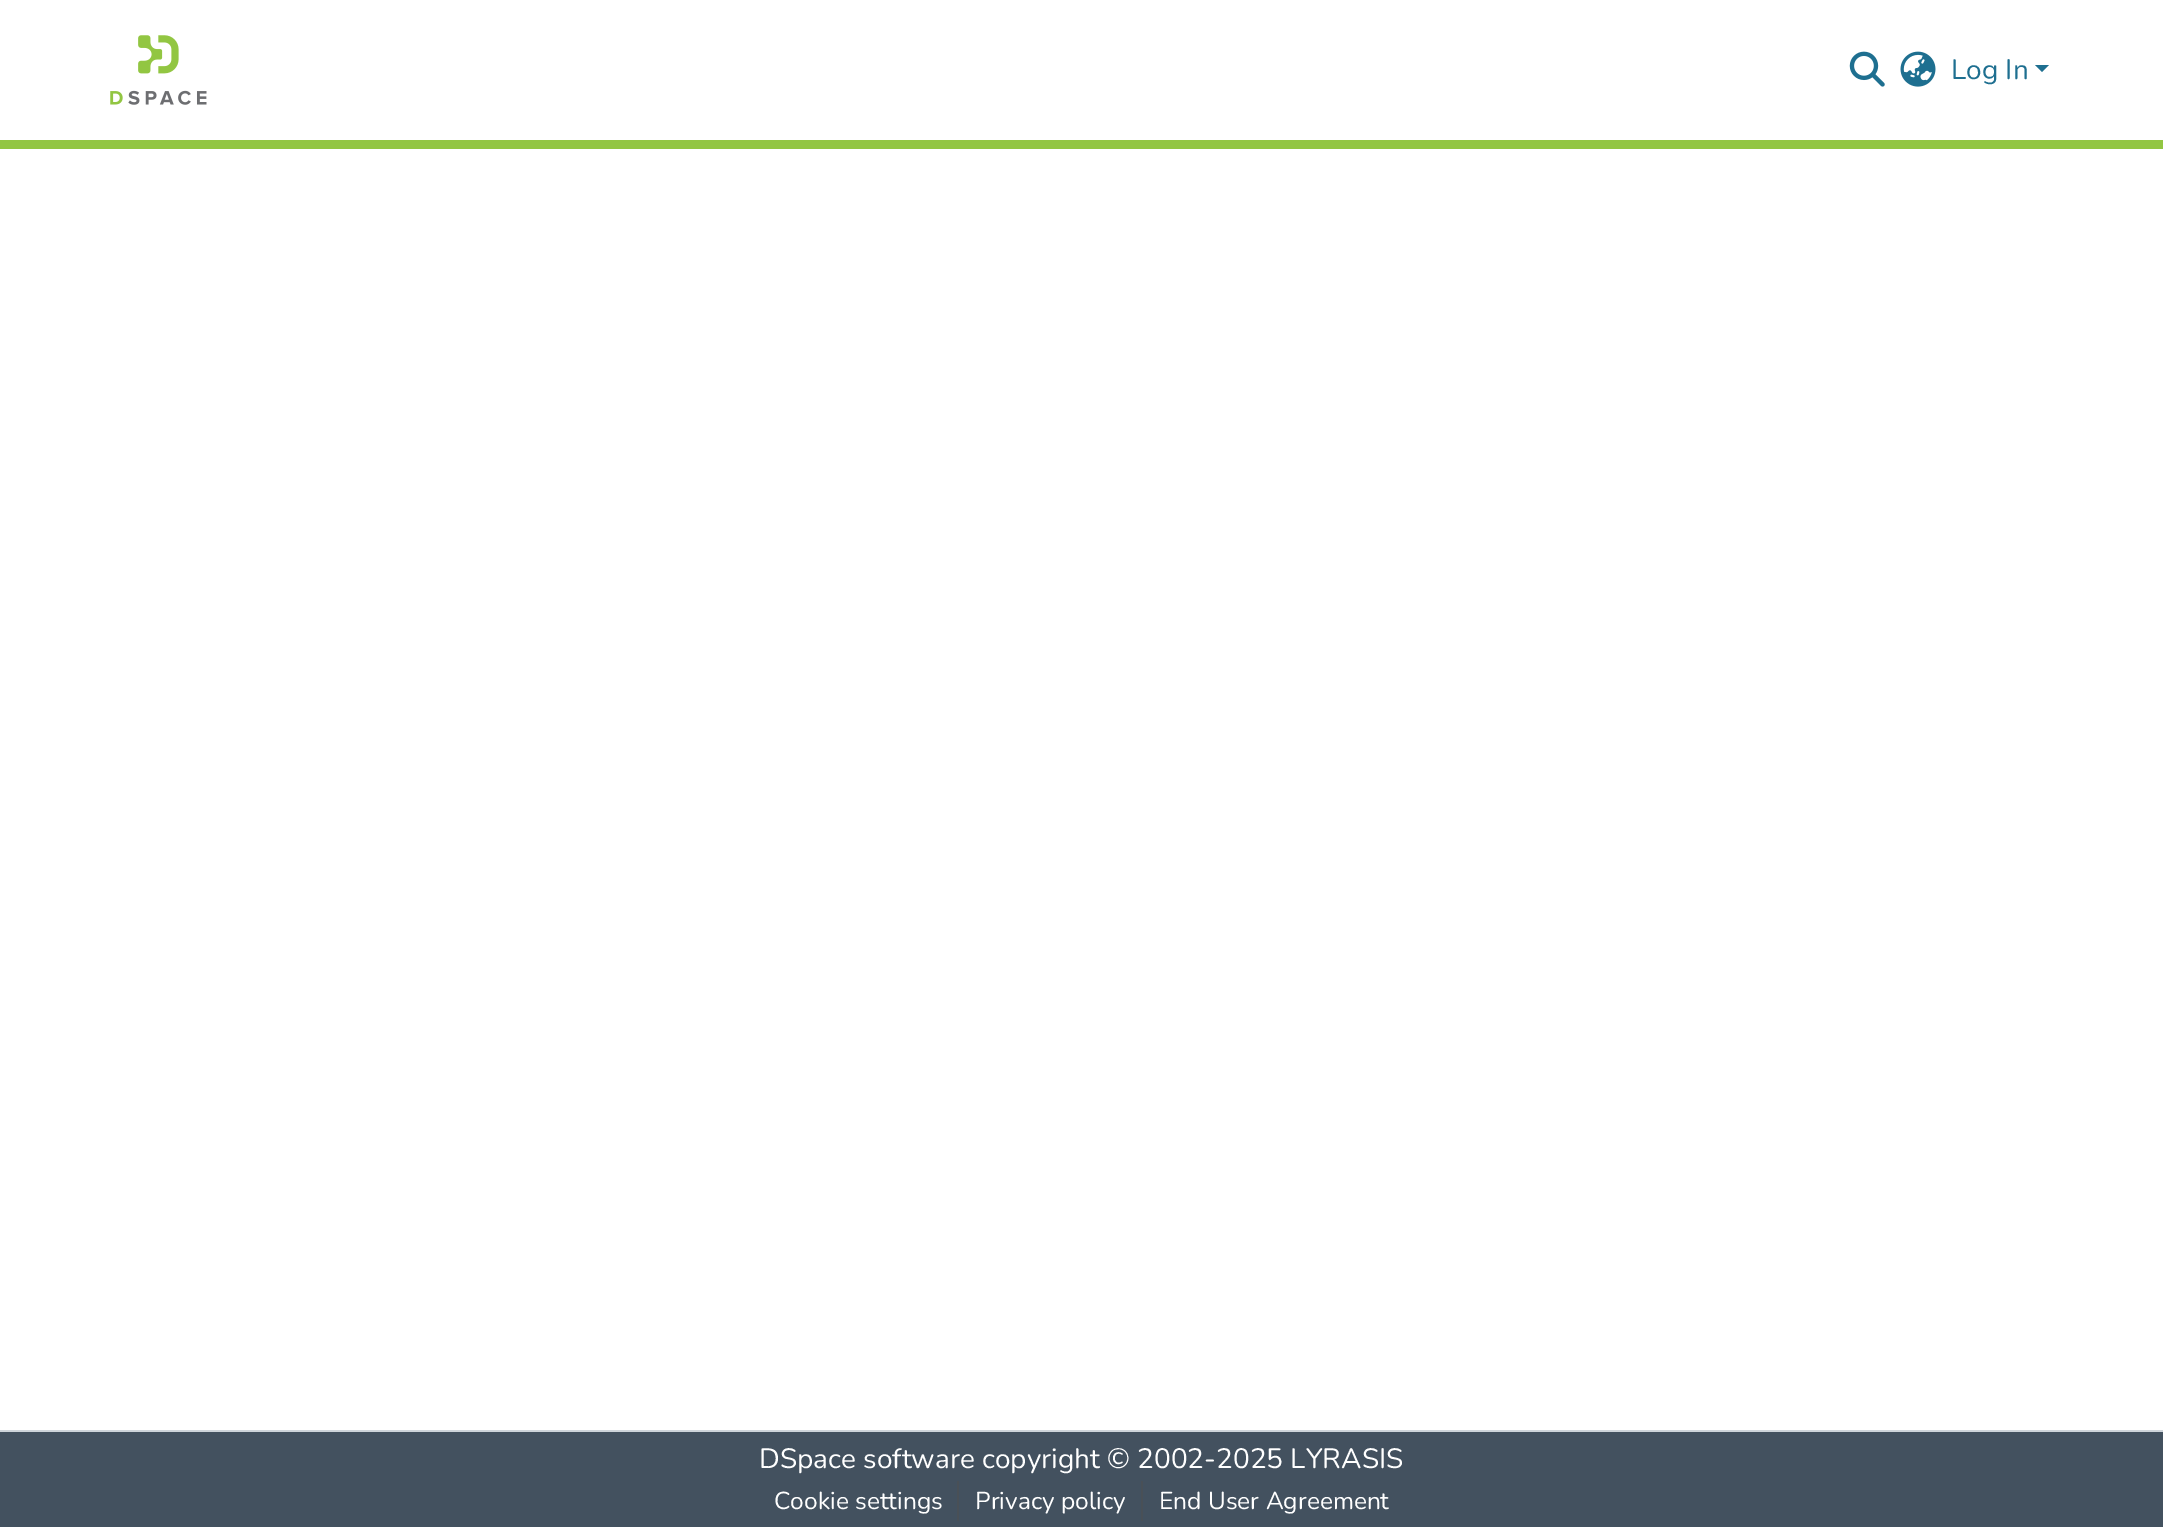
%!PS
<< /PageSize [2163 1527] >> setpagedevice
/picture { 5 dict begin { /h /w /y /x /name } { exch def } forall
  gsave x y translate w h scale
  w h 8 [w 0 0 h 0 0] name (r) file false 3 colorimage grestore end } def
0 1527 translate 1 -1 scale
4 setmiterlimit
1 setgray
0 0 2163 1527 rectfill
0.573 0.776 0.259 setrgbcolor
0 140 2163 9 rectfill
(img1.rgb) 110 35 97 70 picture
(img2.rgb) 1849 51 36 36 picture
(img3.rgb) 1900 51 36 36 picture
/Nunito-Regular [28 0 0 -28 0 0] selectfont
0.118 0.435 0.565 setrgbcolor
1951 79 moveto (Log In) show
newpath 2035 65 moveto 2049 65 lineto 2042 72 lineto closepath fill
0.263 0.318 0.373 setrgbcolor
0 1432 2163 95 rectfill
0.808 0.831 0.855 setrgbcolor
0 1430 2163 2 rectfill
1 setgray
759 1468 moveto (DSpace software copyright © 2002-2025 LYRASIS) show
/Nunito-Regular [24.5 0 0 -24.5 0 0] selectfont
774 1509 moveto (Cookie settings) show
0.286 0.314 0.341 setrgbcolor
957 1481 2 40 rectfill
1 setgray
975 1509 moveto (Privacy policy) show
0.286 0.314 0.341 setrgbcolor
1141 1481 2 40 rectfill
1 setgray
1159 1509 moveto (End User Agreement) show
showpage
